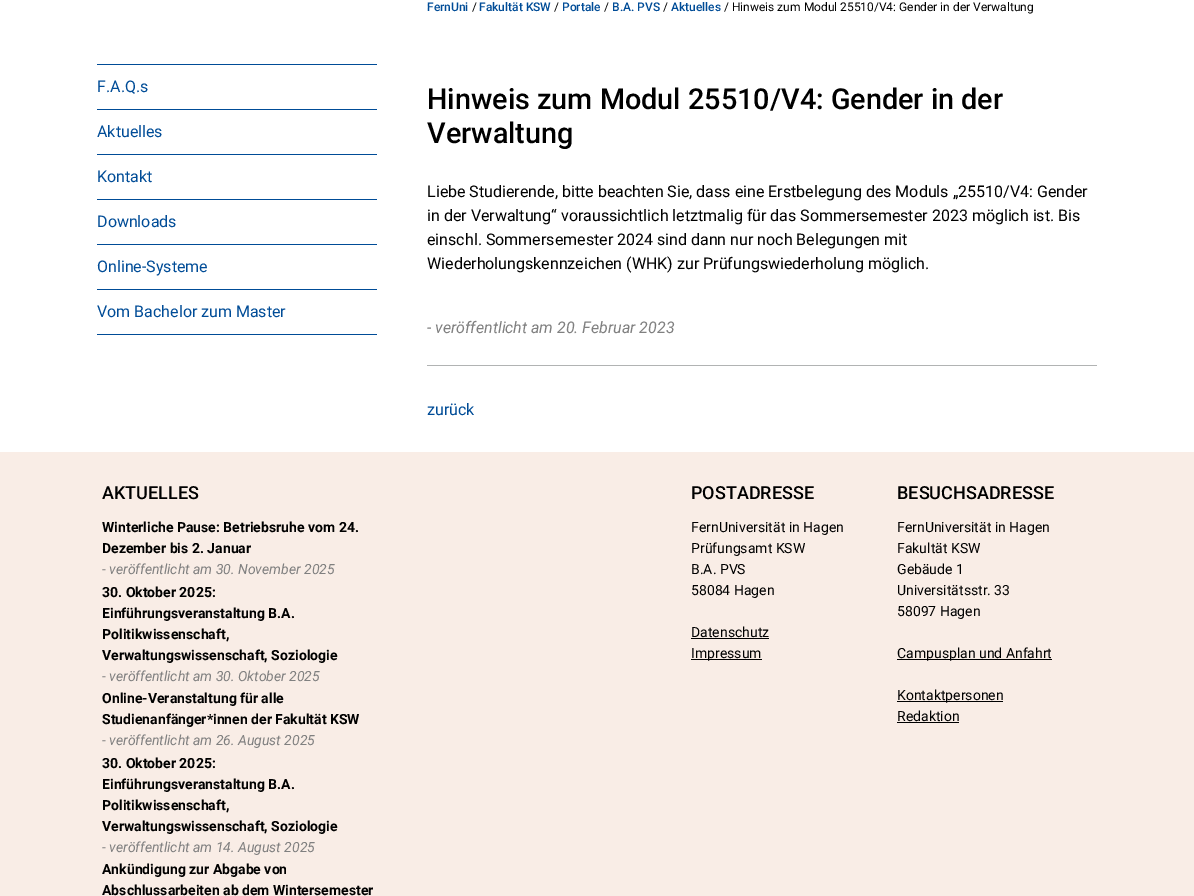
%!PS
<< /PageSize [1194 896] >> setpagedevice
0 896 translate 1 -1 scale
4 setmiterlimit
1 setgray
0 0 1194 896 rectfill
0 0.298 0.592 setrgbcolor
97 334 280 1 rectfill
97 64 280 1 rectfill
/Roboto-Regular [16 0 0 -16 0 0] selectfont
97 92 moveto (F.A.Q.s) show
97 109 280 1 rectfill
97 137 moveto (Aktuelles) show
97 154 280 1 rectfill
97 182 moveto (Kontakt) show
97 199 280 1 rectfill
97 227 moveto (Downloads) show
97 244 280 1 rectfill
97 272 moveto (Online-Systeme) show
97 289 280 1 rectfill
97 317 moveto (Vom Bachelor zum Master) show
/Roboto-Medium [12 0 0 -12 0 0] selectfont
427 11 moveto (FernUni) show
/Roboto-Regular [12 0 0 -12 0 0] selectfont
0 setgray
472 11 moveto (/) show
/Roboto-Medium [12 0 0 -12 0 0] selectfont
0 0.298 0.592 setrgbcolor
479 11 moveto (Fakultät KSW) show
/Roboto-Regular [12 0 0 -12 0 0] selectfont
0 setgray
554 11 moveto (/) show
/Roboto-Medium [12 0 0 -12 0 0] selectfont
0 0.298 0.592 setrgbcolor
562 11 moveto (Portale) show
/Roboto-Regular [12 0 0 -12 0 0] selectfont
0 setgray
604 11 moveto (/) show
/Roboto-Medium [12 0 0 -12 0 0] selectfont
0 0.298 0.592 setrgbcolor
612 11 moveto (B.A. PVS) show
/Roboto-Regular [12 0 0 -12 0 0] selectfont
0 setgray
663 11 moveto (/) show
/Roboto-Medium [12 0 0 -12 0 0] selectfont
0 0.298 0.592 setrgbcolor
671 11 moveto (Aktuelles) show
/Roboto-Regular [12 0 0 -12 0 0] selectfont
0 setgray
724 11 moveto (/ Hinweis zum Modul 25510/V4: Gender in der Verwaltung) show
/Roboto-Medium [28.8 0 0 -28.8 0 0] selectfont
427 109 moveto (Hinweis zum Modul 25510/V4: Gender in der) show
427 143 moveto (Verwaltung) show
/Roboto-Regular [16 0 0 -16 0 0] selectfont
427 197 moveto (Liebe Studierende, bitte beachten Sie, dass eine Erstbelegung des Moduls „25510/V4: Gender) show
427 221 moveto (in der Verwaltung“ voraussichtlich letztmalig für das Sommersemester 2023 möglich ist. Bis) show
427 245 moveto (einschl. Sommersemester 2024 sind dann nur noch Belegungen mit) show
427 269 moveto (Wiederholungskennzeichen \(WHK\) zur Prüfungswiederholung möglich.) show
/Roboto-Italic [16 0 0 -16 0 0] selectfont
0.502 setgray
427 333 moveto (- veröffentlicht am 20. Februar 2023) show
0.694 0.702 0.702 setrgbcolor
427 365 670 1 rectfill
/Roboto-Regular [16 0 0 -16 0 0] selectfont
0 0.298 0.592 setrgbcolor
427 415 moveto (zurück) show
0.976 0.929 0.902 setrgbcolor
0 452 1194 444 rectfill
/Roboto-Medium [18 0 0 -18 0 0] selectfont
0 setgray
102 499 moveto (AKTUELLES) show
/Roboto-Bold [14 0 0 -14 0 0] selectfont
102 532 moveto (Winterliche Pause: Betriebsruhe vom 24.) show
102 553 moveto (Dezember bis 2. Januar) show
/Roboto-Italic [14 0 0 -14 0 0] selectfont
0.502 setgray
102 574 moveto (- veröffentlicht am 30. November 2025) show
/Roboto-Bold [14 0 0 -14 0 0] selectfont
0 setgray
102 597 moveto (30. Oktober 2025:) show
102 618 moveto (Einführungsveranstaltung B.A.) show
102 639 moveto (Politikwissenschaft,) show
102 660 moveto (Verwaltungswissenschaft, Soziologie) show
/Roboto-Italic [14 0 0 -14 0 0] selectfont
0.502 setgray
102 681 moveto (- veröffentlicht am 30. Oktober 2025) show
/Roboto-Bold [14 0 0 -14 0 0] selectfont
0 setgray
102 703 moveto (Online-Veranstaltung für alle) show
102 724 moveto (Studienanfänger*innen der Fakultät KSW) show
/Roboto-Italic [14 0 0 -14 0 0] selectfont
0.502 setgray
102 745 moveto (- veröffentlicht am 26. August 2025) show
/Roboto-Bold [14 0 0 -14 0 0] selectfont
0 setgray
102 768 moveto (30. Oktober 2025:) show
102 789 moveto (Einführungsveranstaltung B.A.) show
102 810 moveto (Politikwissenschaft,) show
102 831 moveto (Verwaltungswissenschaft, Soziologie) show
/Roboto-Italic [14 0 0 -14 0 0] selectfont
0.502 setgray
102 852 moveto (- veröffentlicht am 14. August 2025) show
/Roboto-Bold [14 0 0 -14 0 0] selectfont
0 setgray
102 874 moveto (Ankündigung zur Abgabe von) show
102 895 moveto (Abschlussarbeiten ab dem Wintersemester) show
/Roboto-Medium [18 0 0 -18 0 0] selectfont
691 499 moveto (POSTADRESSE) show
/Roboto-Regular [14 0 0 -14 0 0] selectfont
691 532 moveto (FernUniversität in Hagen) show
691 553 moveto (Prüfungsamt KSW) show
691 574 moveto (B.A. PVS) show
691 595 moveto (58084 Hagen) show
691 637 moveto (Datenschutz) show
691 638 78 1 rectfill
691 659 71 1 rectfill
691 658 moveto (Impressum) show
/Roboto-Medium [18 0 0 -18 0 0] selectfont
897 499 moveto (BESUCHSADRESSE) show
/Roboto-Regular [14 0 0 -14 0 0] selectfont
897 532 moveto (FernUniversität in Hagen) show
897 553 moveto (Fakultät KSW) show
897 574 moveto (Gebäude 1) show
897 595 moveto (Universitätsstr. 33) show
897 616 moveto (58097 Hagen) show
897 659 155 1 rectfill
897 658 moveto (Campusplan und Anfahrt) show
897 701 106 1 rectfill
897 700 moveto (Kontaktpersonen) show
897 721 moveto (Redaktion) show
897 722 62 1 rectfill
showpage
